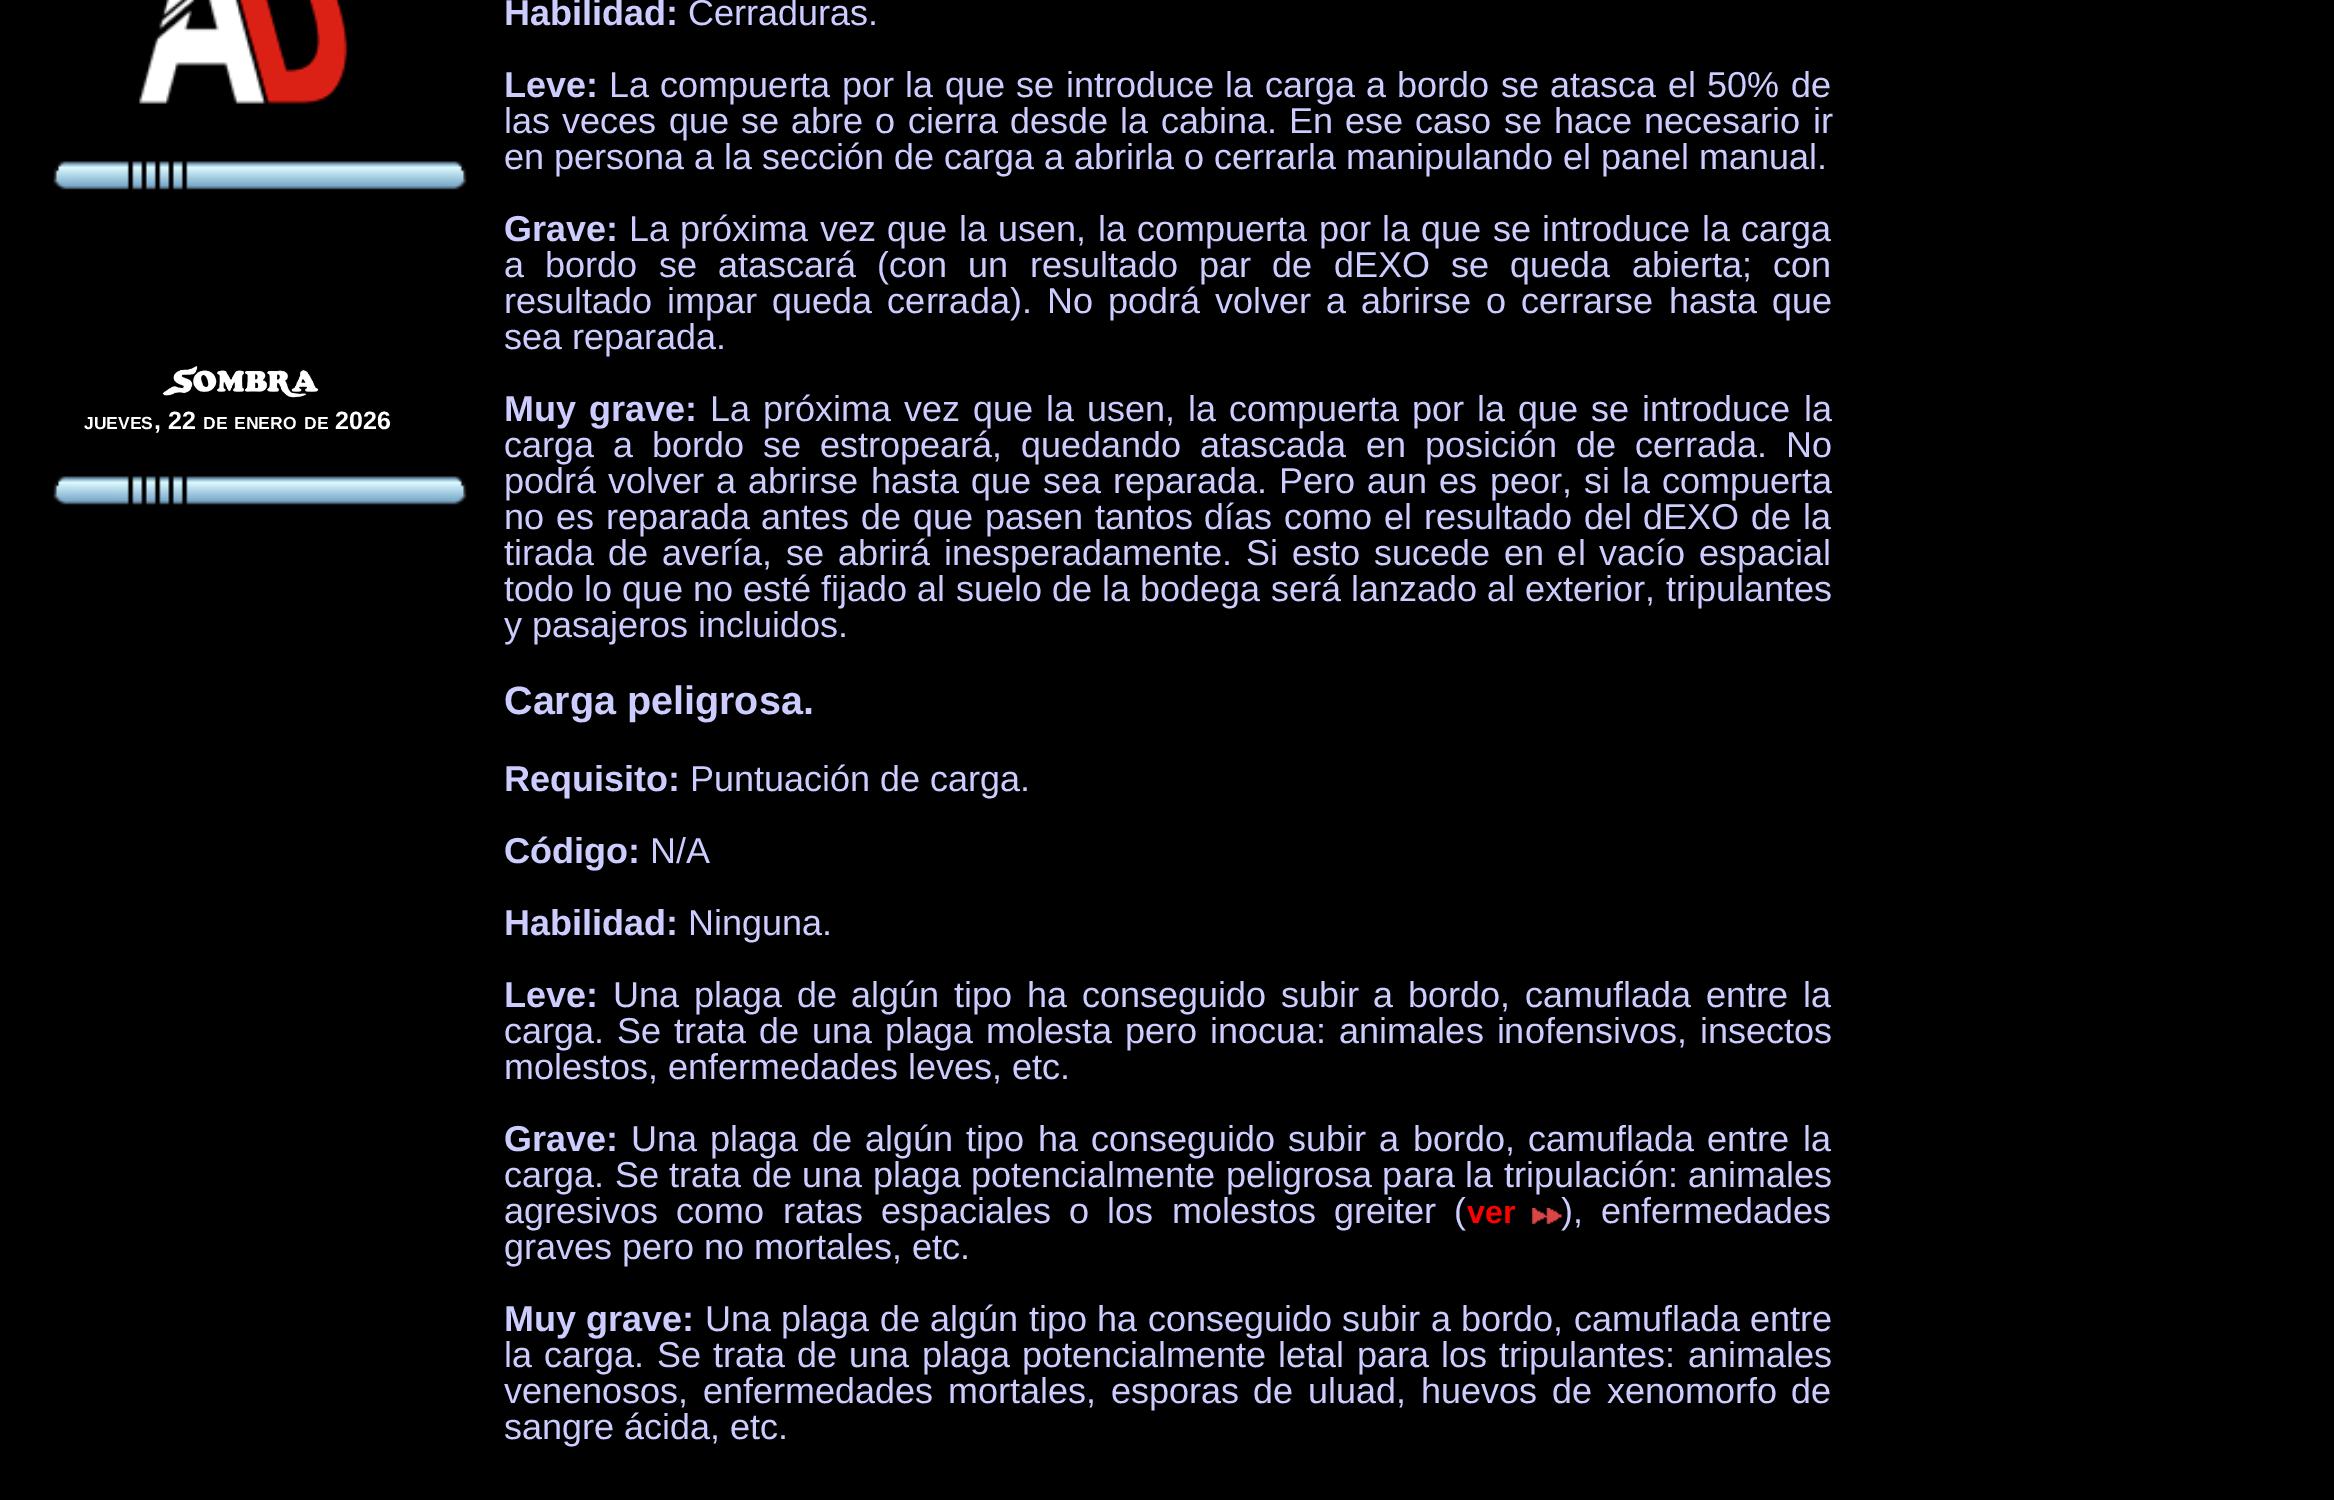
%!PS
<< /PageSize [2334 1500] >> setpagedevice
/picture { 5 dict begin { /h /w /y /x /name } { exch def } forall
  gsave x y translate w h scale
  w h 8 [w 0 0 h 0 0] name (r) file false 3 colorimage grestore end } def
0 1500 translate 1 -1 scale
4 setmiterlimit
0 setgray
0 0 2334 1500 rectfill
(img1.rgb) 139 0 209 104 picture
(img2.rgb) 53 161 414 29 picture
(img3.rgb) 163 366 156 32 picture
/LiberationSans-Bold [17.5 0 0 -17.5 0 0] selectfont
1 setgray
84 429 moveto (JUEVES) show
/LiberationSans-Bold [25 0 0 -25 0 0] selectfont
154 429 moveto (, 22) show
/LiberationSans-Bold [17.5 0 0 -17.5 0 0] selectfont
203 429 moveto (DE) show
234 429 moveto (ENERO) show
304 429 moveto (DE) show
/LiberationSans-Bold [25 0 0 -25 0 0] selectfont
335 429 moveto (2026) show
(img2.rgb) 53 476 414 29 picture
/LiberationSans-Bold [36 0 0 -36 0 0] selectfont
0.8 0.8 1 setrgbcolor
504 25 moveto (Habilidad:) show
/LiberationSans-Regular [36 0 0 -36 0 0] selectfont
688 25 moveto (Cerraduras.) show
/LiberationSans-Bold [36 0 0 -36 0 0] selectfont
504 97 moveto (Leve:) show
/LiberationSans-Regular [36 0 0 -36 0 0] selectfont
609 97 moveto 1.4 0 32 (La compuerta por la que se introduce la carga a bordo se atasca el 50% de) widthshow
504 133 moveto 2.25 0 32 (las veces que se abre o cierra desde la cabina. En ese caso se hace necesario ir) widthshow
504 169 moveto (en persona a la sección de carga a abrirla o cerrarla manipulando el panel manual.) show
/LiberationSans-Bold [36 0 0 -36 0 0] selectfont
504 241 moveto (Grave:) show
/LiberationSans-Regular [36 0 0 -36 0 0] selectfont
629 241 moveto 1.4 0 32 (La próxima vez que la usen, la compuerta por la que se introduce la carga) widthshow
504 277 moveto 11.25 0 32 (a bordo se atascará \(con un resultado par de dEXO se queda abierta; con) widthshow
504 313 moveto 5.1 0 32 (resultado impar queda cerrada\). No podrá volver a abrirse o cerrarse hasta que) widthshow
504 349 moveto (sea reparada.) show
/LiberationSans-Bold [36 0 0 -36 0 0] selectfont
504 421 moveto 3 0 32 (Muy grave:) widthshow
/LiberationSans-Regular [36 0 0 -36 0 0] selectfont
710 421 moveto 3 0 32 (La próxima vez que la usen, la compuerta por la que se introduce la) widthshow
504 457 moveto 9 0 32 (carga a bordo se estropeará, quedando atascada en posición de cerrada. No) widthshow
504 493 moveto 2.1 0 32 (podrá volver a abrirse hasta que sea reparada. Pero aun es peor, si la compuerta) widthshow
504 529 moveto 1.75 0 32 (no es reparada antes de que pasen tantos días como el resultado del dEXO de la) widthshow
504 565 moveto 3.9 0 32 (tirada de avería, se abrirá inesperadamente. Si esto sucede en el vacío espacial) widthshow
504 601 moveto 0.2 0 32 (todo lo que no esté fijado al suelo de la bodega será lanzado al exterior, tripulantes) widthshow
504 637 moveto (y pasajeros incluidos.) show
/LiberationSans-Bold [39.5 0 0 -39.5 0 0] selectfont
504 714 moveto (Carga peligrosa.) show
/LiberationSans-Bold [36 0 0 -36 0 0] selectfont
504 791 moveto (Requisito:) show
/LiberationSans-Regular [36 0 0 -36 0 0] selectfont
690 791 moveto (Puntuación de carga.) show
/LiberationSans-Bold [36 0 0 -36 0 0] selectfont
504 863 moveto (Código:) show
/LiberationSans-Regular [36 0 0 -36 0 0] selectfont
650 863 moveto (N/A) show
/LiberationSans-Bold [36 0 0 -36 0 0] selectfont
504 935 moveto (Habilidad:) show
/LiberationSans-Regular [36 0 0 -36 0 0] selectfont
688 935 moveto (Ninguna.) show
/LiberationSans-Bold [36 0 0 -36 0 0] selectfont
504 1007 moveto (Leve:) show
/LiberationSans-Regular [36 0 0 -36 0 0] selectfont
613 1007 moveto 4.75 0 32 (Una plaga de algún tipo ha conseguido subir a bordo, camuflada entre la) widthshow
504 1043 moveto 3 0 32 (carga. Se trata de una plaga molesta pero inocua: animales inofensivos, insectos) widthshow
504 1079 moveto (molestos, enfermedades leves, etc.) show
/LiberationSans-Bold [36 0 0 -36 0 0] selectfont
504 1151 moveto (Grave:) show
/LiberationSans-Regular [36 0 0 -36 0 0] selectfont
631 1151 moveto 3.25 0 32 (Una plaga de algún tipo ha conseguido subir a bordo, camuflada entre la) widthshow
504 1187 moveto 0.5 0 32 (carga. Se trata de una plaga potencialmente peligrosa para la tripulación: animales) widthshow
504 1223 moveto 8.25 0 32 (agresivos como ratas espaciales o los molestos greiter \() widthshow
/LiberationSans-Bold [32 0 0 -32 0 0] selectfont
1 0 0 setrgbcolor
1467 1223 moveto (ver) show
(img4.rgb) 1532 1208 30 16 picture
/LiberationSans-Regular [36 0 0 -36 0 0] selectfont
0.8 0.8 1 setrgbcolor
1561 1223 moveto 8.25 0 32 (\), enfermedades) widthshow
504 1259 moveto (graves pero no mortales, etc.) show
/LiberationSans-Bold [36 0 0 -36 0 0] selectfont
504 1331 moveto (Muy grave:) show
/LiberationSans-Regular [36 0 0 -36 0 0] selectfont
705 1331 moveto 0.4 0 32 (Una plaga de algún tipo ha conseguido subir a bordo, camuflada entre) widthshow
504 1367 moveto 2.25 0 32 (la carga. Se trata de una plaga potencialmente letal para los tripulantes: animales) widthshow
504 1403 moveto 4.75 0 32 (venenosos, enfermedades mortales, esporas de uluad, huevos de xenomorfo de) widthshow
504 1439 moveto (sangre ácida, etc.) show
showpage
